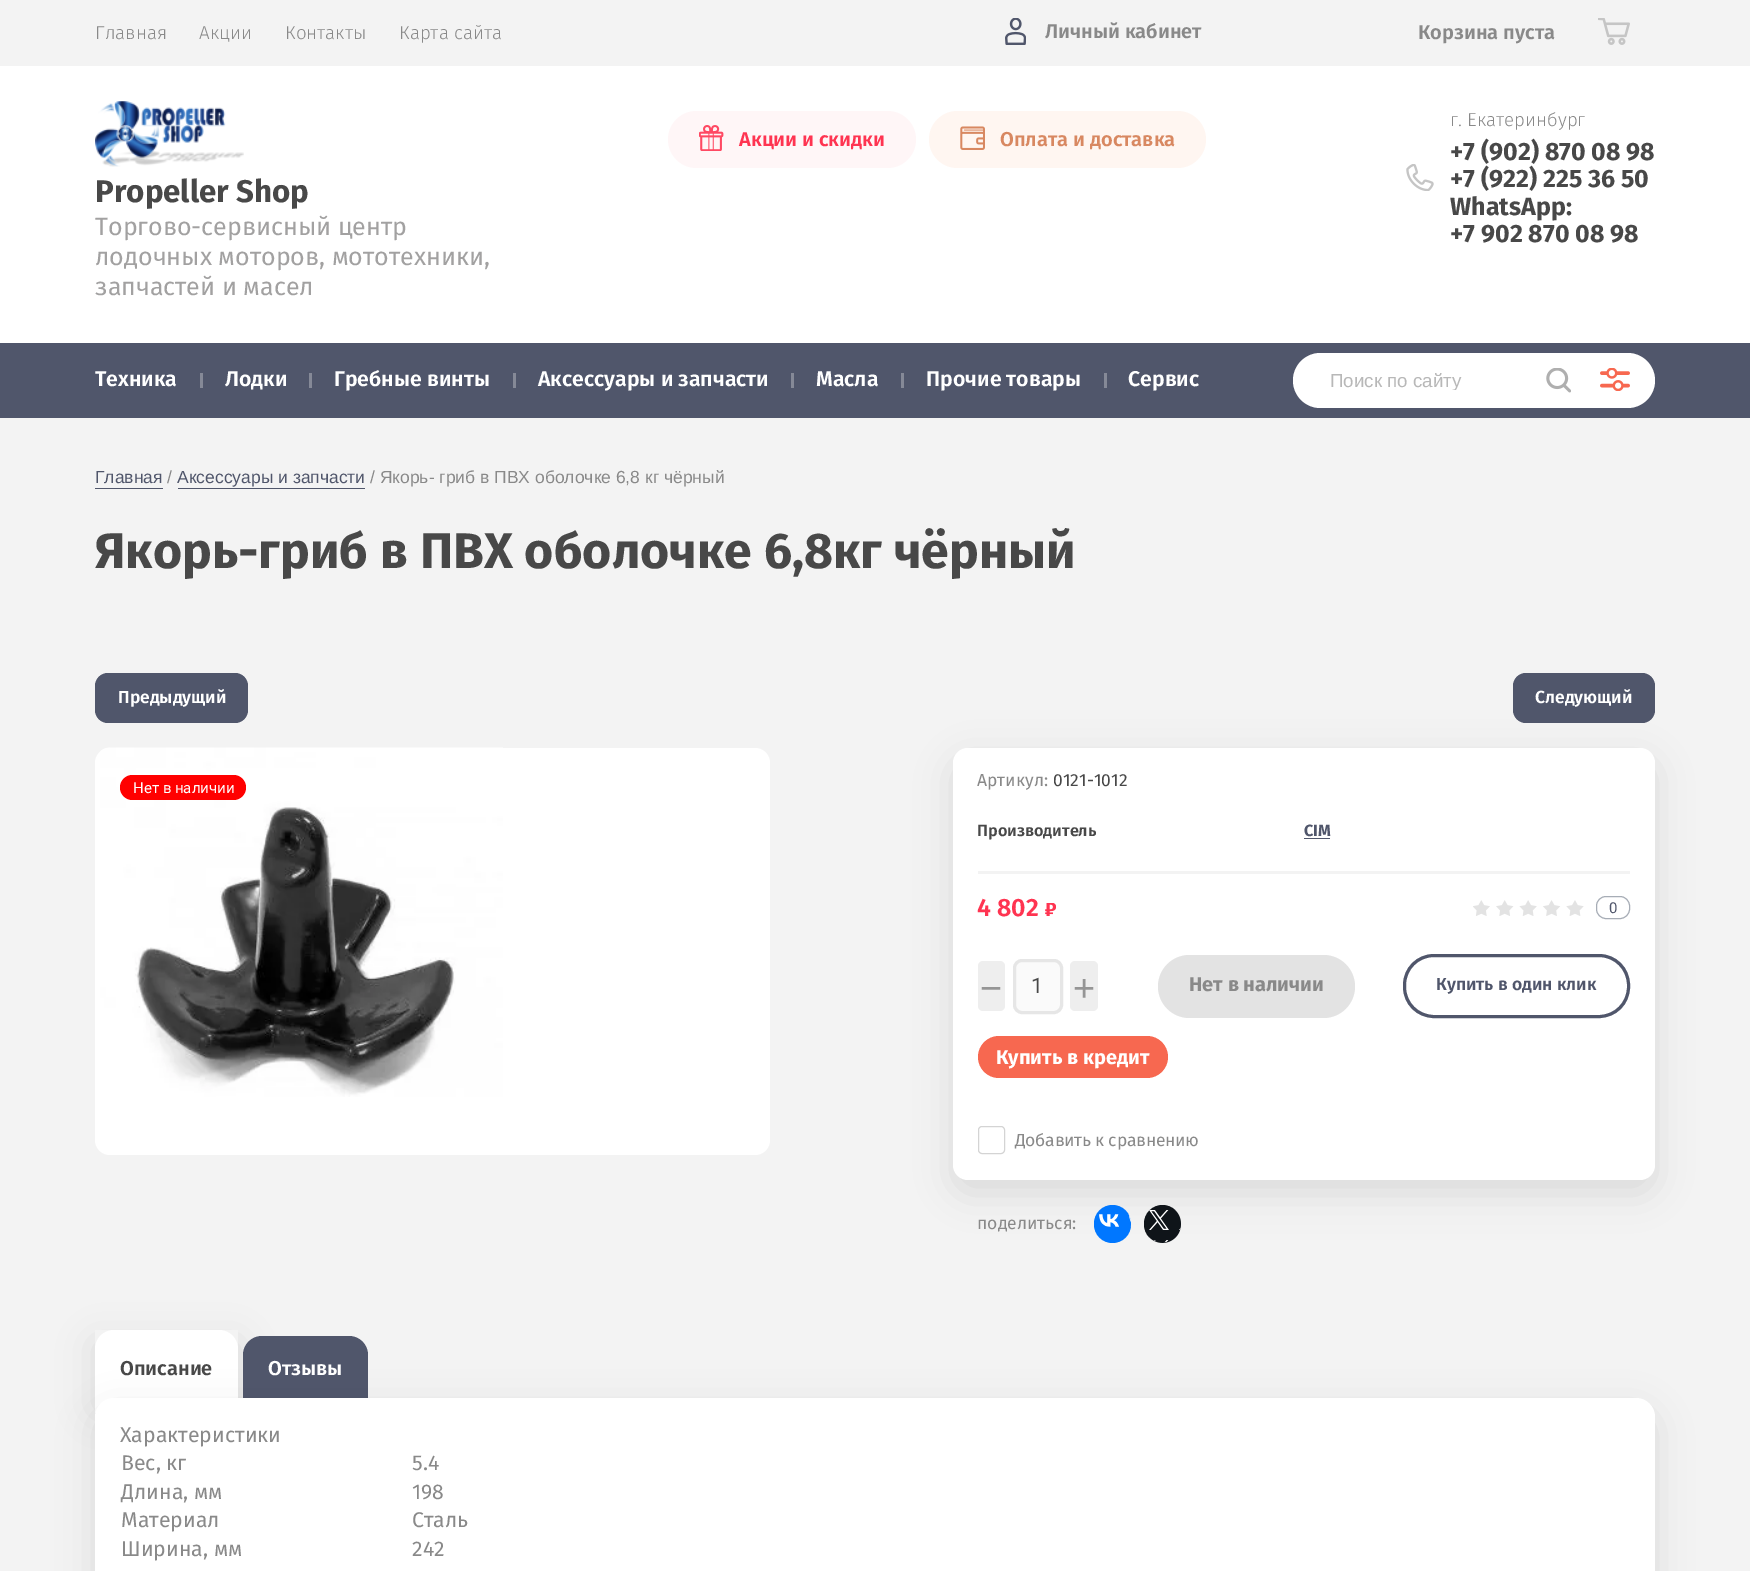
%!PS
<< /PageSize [1750 1571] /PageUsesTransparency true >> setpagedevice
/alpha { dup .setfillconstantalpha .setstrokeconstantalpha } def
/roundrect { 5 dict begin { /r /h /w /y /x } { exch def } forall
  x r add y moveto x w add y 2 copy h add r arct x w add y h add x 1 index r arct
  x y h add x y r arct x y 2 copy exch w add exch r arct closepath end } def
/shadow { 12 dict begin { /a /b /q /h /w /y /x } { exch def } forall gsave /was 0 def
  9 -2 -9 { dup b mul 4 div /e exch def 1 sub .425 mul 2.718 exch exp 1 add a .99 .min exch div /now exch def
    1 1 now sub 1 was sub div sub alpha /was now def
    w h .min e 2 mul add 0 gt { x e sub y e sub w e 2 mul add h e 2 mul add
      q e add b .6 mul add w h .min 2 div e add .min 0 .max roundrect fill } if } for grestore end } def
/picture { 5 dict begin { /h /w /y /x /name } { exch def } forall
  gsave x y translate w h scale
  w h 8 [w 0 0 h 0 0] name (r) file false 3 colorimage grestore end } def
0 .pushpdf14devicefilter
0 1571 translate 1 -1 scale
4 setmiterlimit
1 setgray
0 0 1750 1571 rectfill
0.953 setgray
0 0 1750 66 rectfill
/FiraSans-Light [18.75 0 0 -18.75 0 0] selectfont
0.537 setgray
95 39 moveto (Главная) show
199 39 moveto (Акции) show
285 39 moveto (Контакты) show
399 39 moveto (Карта сайта) show
(img1.rgb) 1005 18 21 27 picture
/FiraSans-SemiBold [20 0 0 -20 0 0] selectfont
1045 38 moveto (Личный кабинет) show
(img2.rgb) 1598 18 32 27 picture
1418 39 moveto (Корзина пуста) show
(img3.rgb) 95 101 149 66 picture
/FiraSans-Bold [31.25 0 0 -31.25 0 0] selectfont
0.282 setgray
95 202 moveto (Propeller Shop) show
/FiraSans-Regular [25 0 0 -25 0 0] selectfont
0.635 0.631 0.631 setrgbcolor
95 235 moveto (Торгово-сервисный центр) show
95 265 moveto (лодочных моторов, мототехники,) show
95 295 moveto (запчастей и масел) show
1 0.965 0.969 setrgbcolor
668 111 248 57 28.5 roundrect fill
(img4.rgb) 699 125 25 26 picture
/FiraSans-SemiBold [20 0 0 -20 0 0] selectfont
1 0.204 0.318 setrgbcolor
739 146 moveto (Акции и скидки) show
1 0.965 0.945 setrgbcolor
929 111 277 57 28.5 roundrect fill
(img5.rgb) 960 126 25 24 picture
0.847 0.533 0.38 setrgbcolor
1000 146 moveto (Оплата и доставка) show
(img6.rgb) 1406 164 28 27 picture
/FiraSans-Light [18.75 0 0 -18.75 0 0] selectfont
0.537 setgray
1450 126 moveto (г. Екатеринбург) show
/FiraSans-Bold [25 0 0 -25 0 0] selectfont
0.282 setgray
1450 160 moveto (+7 \(902\) 870 08 98) show
1450 187 moveto (+7 \(922\) 225 36 50) show
1450 215 moveto (WhatsApp:) show
1450 242 moveto (+7 902 870 08 98) show
0.953 setgray
0 418 1750 1153 rectfill
0.314 0.337 0.42 setrgbcolor
0 343 1750 75 rectfill
/FiraSans-SemiBold [21.25 0 0 -21.25 0 0] selectfont
1 setgray
95 386 moveto (Техника) show
0.522 0.537 0.592 setrgbcolor
200 373 3 15 rectfill
1 setgray
225 386 moveto (Лодки) show
0.522 0.537 0.592 setrgbcolor
309 373 3 15 rectfill
1 setgray
334 386 moveto (Гребные винты) show
0.522 0.537 0.592 setrgbcolor
513 373 3 15 rectfill
1 setgray
538 386 moveto (Аксессуары и запчасти) show
0.522 0.537 0.592 setrgbcolor
791 373 3 15 rectfill
1 setgray
816 386 moveto (Масла) show
0.522 0.537 0.592 setrgbcolor
901 373 3 15 rectfill
1 setgray
926 386 moveto (Прочие товары) show
0.522 0.537 0.592 setrgbcolor
1104 373 3 15 rectfill
1 setgray
1128 386 moveto (Сервис) show
1293 353 362 55 27.5 roundrect fill
gsave
1330 369 206 21 rectclip
/LiberationSans-Regular [18.75 0 0 -18.75 0 0] selectfont
0.722 setgray
1330 387 moveto (Поиск по сайту) show
grestore
(img7.rgb) 1546 368 25 25 picture
(img8.rgb) 1600 368 30 23 picture
/LiberationSans-Regular [17.5 0 0 -17.5 0 0] selectfont
0.314 0.337 0.42 setrgbcolor
95 483 moveto (Главная) show
95 488 68 1 rectfill
0.537 setgray
167 483 moveto (/) show
0.314 0.337 0.42 setrgbcolor
177 483 moveto (Аксессуары и запчасти) show
178 488 187 1 rectfill
0.537 setgray
370 483 moveto (/ Якорь- гриб в ПВХ оболочке 6,8 кг чёрный) show
/FiraSans-Bold [50 0 0 -50 0 0] selectfont
0.282 setgray
95 568 moveto (Якорь-гриб в ПВХ оболочке 6,8кг чёрный) show
0.314 0.337 0.42 setrgbcolor
95 673 153 50 13 roundrect fill
/FiraSans-SemiBold [17.5 0 0 -17.5 0 0] selectfont
1 setgray
118 703 moveto (Предыдущий) show
0.314 0.337 0.42 setrgbcolor
1513 673 142 50 13 roundrect fill
1 setgray
1535 703 moveto (Следующий) show
95 748 675 407 15 roundrect fill
(img9.rgb) 100 747 403 350 picture
1 0 0 setrgbcolor
120 775 126 25 12.5 roundrect fill
/Roboto-Regular [15 0 0 -15 0 0] selectfont
1 setgray
133 793 moveto (Нет в наличии) show
0 setgray
953 760 702 433 15 18 0.1 shadow
1 setgray
953 748 702 432 15 roundrect fill
/FiraSans-Regular [17.5 0 0 -17.5 0 0] selectfont
0.537 setgray
977 786 moveto (Артикул:) show
0.282 setgray
1053 786 moveto (0121-1012) show
/FiraSans-SemiBold [16.25 0 0 -16.25 0 0] selectfont
977 836 moveto (Производитель) show
/FiraSans-Bold [16.25 0 0 -16.25 0 0] selectfont
0.314 0.337 0.42 setrgbcolor
1304 836 moveto (CIM) show
1304 838 26 1 rectfill
0.953 setgray
978 871 652 3 rectfill
/FiraSans-SemiBold [25 0 0 -25 0 0] selectfont
1 0.204 0.318 setrgbcolor
977 916 moveto (4 802) show
(img10.rgb) 1045 903 11 13 picture
(img11.rgb) 1473 900 111 16 picture
0.655 0.678 0.714 setrgbcolor
1596.5 896.5 33 22 9.5 roundrect stroke
/Roboto-Regular [15 0 0 -15 0 0] selectfont
0.314 0.337 0.42 setrgbcolor
1609 913 moveto (0) show
0.933 setgray
978 961 27 50 5 roundrect fill
/LiberationSans-Regular [38 0 0 -38 0 0] selectfont
0.584 setgray
980 1001 moveto (−) show
0.98 setgray
1014.5 960.5 47 52 7.5 roundrect gsave fill grestore
0.902 setgray
3 setlinewidth
stroke
/Roboto-Regular [21.25 0 0 -21.25 0 0] selectfont
0.282 setgray
1031 993 moveto (1) show
0.933 setgray
1070 961 28 50 5 roundrect fill
/LiberationSans-Regular [38 0 0 -38 0 0] selectfont
0.584 setgray
1073 1001 moveto (+) show
0.89 setgray
1158 955 197 63 31.5 roundrect fill
/FiraSans-Bold [20 0 0 -20 0 0] selectfont
0.537 setgray
1189 991 moveto (Нет в наличии) show
0.314 0.337 0.42 setrgbcolor
1404.5 955.5 224 61 29.5 roundrect stroke
/FiraSans-SemiBold [17.5 0 0 -17.5 0 0] selectfont
1436 990 moveto (Купить в один клик) show
0.969 0.408 0.314 setrgbcolor
978 1036 190 42 21 roundrect fill
/FiraSans-Bold [20 0 0 -20 0 0] selectfont
1 setgray
996 1064 moveto (Купить в кредит) show
0.831 setgray
1 setlinewidth
978.5 1126.5 26 27 3.5 roundrect stroke
/FiraSans-Regular [17.5 0 0 -17.5 0 0] selectfont
0.537 setgray
1015 1146 moveto -0.25 0 (Добавить к сравнению) ashow
977 1229 moveto (поделиться:) show
0 0.467 1 setrgbcolor
1094 1205 37 38 18.5 roundrect fill
(img12.rgb) 1099 1214 32 13 picture
0.059 0.078 0.098 setrgbcolor
1144 1205 37 38 18.5 roundrect fill
(img13.rgb) 1149 1210 32 33 picture
gsave
newpath 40 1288 moveto 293 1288 lineto 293 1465 lineto 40 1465 lineto closepath 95 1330 moveto 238 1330 lineto 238 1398 lineto 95 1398 lineto closepath eoclip newpath
0 setgray
95 1343 143 67 0 18 0.1 shadow
grestore
1 setgray
newpath 114 1330 moveto 219 1330 lineto 229.5 1330 238 1338.5 238 1349 curveto 238 1413 lineto 95 1413 lineto 95 1349 lineto 95 1338.5 103.5 1330 114 1330 curveto closepath fill
/FiraSans-SemiBold [20 0 0 -20 0 0] selectfont
0.282 setgray
120 1375 moveto (Описание) show
0.314 0.337 0.42 setrgbcolor
newpath 262 1336 moveto 349 1336 lineto 359.5 1336 368 1344.5 368 1355 curveto 368 1413 lineto 243 1413 lineto 243 1355 lineto 243 1344.5 251.5 1336 262 1336 curveto closepath fill
1 setgray
268 1375 moveto (Отзывы) show
0 setgray
95 1410 1560 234 19 18 0.1 shadow
1 setgray
95 1398 1560 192 19 roundrect fill
/FiraSans-Regular [21.25 0 0 -21.25 0 0] selectfont
0.537 setgray
120 1442 moveto (Характеристики) show
121 1470 moveto (Вес, кг) show
412 1470 moveto (5.4) show
121 1499 moveto (Длина, мм) show
412 1499 moveto (198) show
121 1527 moveto (Материал) show
412 1527 moveto (Сталь) show
121 1556 moveto (Ширина, мм) show
412 1556 moveto (242) show
.poppdf14devicefilter showpage
